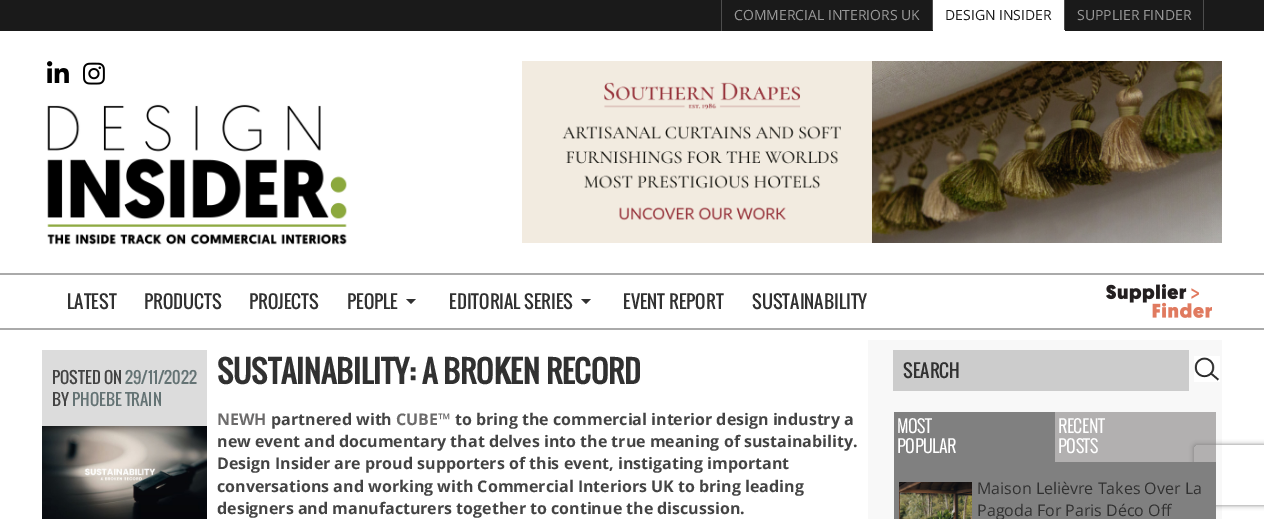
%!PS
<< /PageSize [1264 519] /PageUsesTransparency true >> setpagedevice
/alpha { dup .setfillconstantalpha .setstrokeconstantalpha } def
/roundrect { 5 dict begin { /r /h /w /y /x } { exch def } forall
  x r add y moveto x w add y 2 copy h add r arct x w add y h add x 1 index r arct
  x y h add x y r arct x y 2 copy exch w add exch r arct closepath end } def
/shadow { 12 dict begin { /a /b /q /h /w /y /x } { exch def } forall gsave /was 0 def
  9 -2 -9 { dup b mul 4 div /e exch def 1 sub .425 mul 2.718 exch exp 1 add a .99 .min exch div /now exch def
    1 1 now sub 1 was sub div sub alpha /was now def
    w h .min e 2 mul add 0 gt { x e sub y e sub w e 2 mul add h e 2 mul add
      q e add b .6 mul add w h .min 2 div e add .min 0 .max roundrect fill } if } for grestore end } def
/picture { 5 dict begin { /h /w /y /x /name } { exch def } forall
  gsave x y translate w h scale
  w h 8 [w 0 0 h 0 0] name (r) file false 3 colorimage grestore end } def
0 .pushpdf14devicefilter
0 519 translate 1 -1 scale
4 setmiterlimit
1 setgray
0 0 1264 519 rectfill
0.102 setgray
0 0 1264 31 rectfill
0.302 setgray
932 0 1 31 rectfill
0.102 setgray
932 30 1 1 rectfill
0.302 setgray
721 0 1 31 rectfill
/OpenSans-Regular [14 0 0 -14 0 0] selectfont
0.6 setgray
734 20 moveto (COMMERCIAL INTERIORS UK) show
1 setgray
933 0 131 30 rectfill
0.302 setgray
1064 0 1 31 rectfill
1 setgray
933 30 132 1 rectfill
0.102 setgray
945 20 moveto (DESIGN INSIDER) show
0.302 setgray
1203 0 1 31 rectfill
0.102 setgray
1203 30 1 1 rectfill
0.6 setgray
1077 20 moveto (SUPPLIER FINDER) show
(img1.rgb) 47 61 22 22 picture
(img2.rgb) 83 62 22 23 picture
(img3.rgb) 47 104 300 141 picture
(img4.rgb) 522 61 700 182 picture
0.667 setgray
0 273 1264 2 rectfill
0 328 1264 2 rectfill
/Oswald-Regular [18 0 0 -18 0 0] selectfont
0.192 setgray
67 309 moveto (LATEST) show
144 309 moveto (PRODUCTS) show
249 309 moveto (PROJECTS) show
347 309 moveto (PEOPLE) show
newpath 406 299 moveto 416 299 lineto 411 304 lineto closepath fill
449 309 moveto (EDITORIAL SERIES) show
newpath 581 299 moveto 591 299 lineto 586 304 lineto closepath fill
623 309 moveto (EVENT REPORT) show
752 309 moveto (SUSTAINABILITY) show
(img5.rgb) 1106 284 106 34 picture
0.863 setgray
42 350 165 76 rectfill
/Oswald-Regular [16 0 0 -16 0 0] selectfont
0.267 setgray
52 384 moveto (POSTED ON) show
0.392 0.451 0.455 setrgbcolor
125 384 moveto (29/11/2022) show
0.267 setgray
52 406 moveto (BY) show
0.392 0.451 0.455 setrgbcolor
72 406 moveto (PHOEBE TRAIN) show
(img6.rgb) 42 426 165 93 picture
/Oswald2-Bold [30 0 0 -30 0 0] selectfont
0.192 setgray
217 384 moveto (SUSTAINABILITY: A BROKEN RECORD) show
/OpenSans-Bold [16 0 0 -16 0 0] selectfont
0.424 0.42 0.42 setrgbcolor
217 425 moveto (NEWH) show
0.267 setgray
271 425 moveto (partnered with) show
0.424 0.42 0.42 setrgbcolor
396 425 moveto (CUBE™) show
0.267 setgray
455 425 moveto (to bring the commercial interior design industry a) show
217 447 moveto (new event and documentary that delves into the true meaning of sustainability.) show
217 469 moveto (Design Insider are proud supporters of this event, instigating important) show
217 492 moveto (conversations and working with Commercial Interiors UK to bring leading) show
217 514 moveto (designers and manufacturers together to continue the discussion.) show
0.973 setgray
868 340 354 179 rectfill
0.8 setgray
893 350 296 41 rectfill
/Oswald-Regular [18 0 0 -18 0 0] selectfont
0.192 setgray
903 378 moveto (SEARCH) show
1 setgray
1194 356 26 26 rectfill
(img7.rgb) 1194 357 26 24 picture
0.698 0.69 0.69 setrgbcolor
1055 412 161 50 rectfill
0.502 setgray
894 412 161 50 rectfill
/Oswald-Bold [17 0 0 -17 0 0] selectfont
1 setgray
897 433 moveto (MOST) show
897 453 moveto (POPULAR) show
1058 433 moveto (RECENT) show
1058 453 moveto (POSTS) show
0.502 setgray
894 462 322 57 rectfill
(img8.rgb) 899 482 73 37 picture
/OpenSans-Regular [16 0 0 -16 0 0] selectfont
0.192 setgray
977 494 moveto (Maison Lelièvre Takes Over La) show
977 516 moveto (Pagoda For Paris Déco Off) show
gsave
newpath 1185 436 moveto 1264 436 lineto 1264 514 lineto 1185 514 lineto closepath 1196 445 moveto 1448 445 lineto 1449 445 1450 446 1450 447 curveto 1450 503 lineto 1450 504 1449 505 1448 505 curveto 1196 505 lineto 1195 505 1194 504 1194 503 curveto 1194 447 lineto 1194 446 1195 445 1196 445 curveto closepath eoclip newpath
0.502 setgray
1194 445 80 60 2 2.5 1 shadow
grestore
.poppdf14devicefilter showpage
